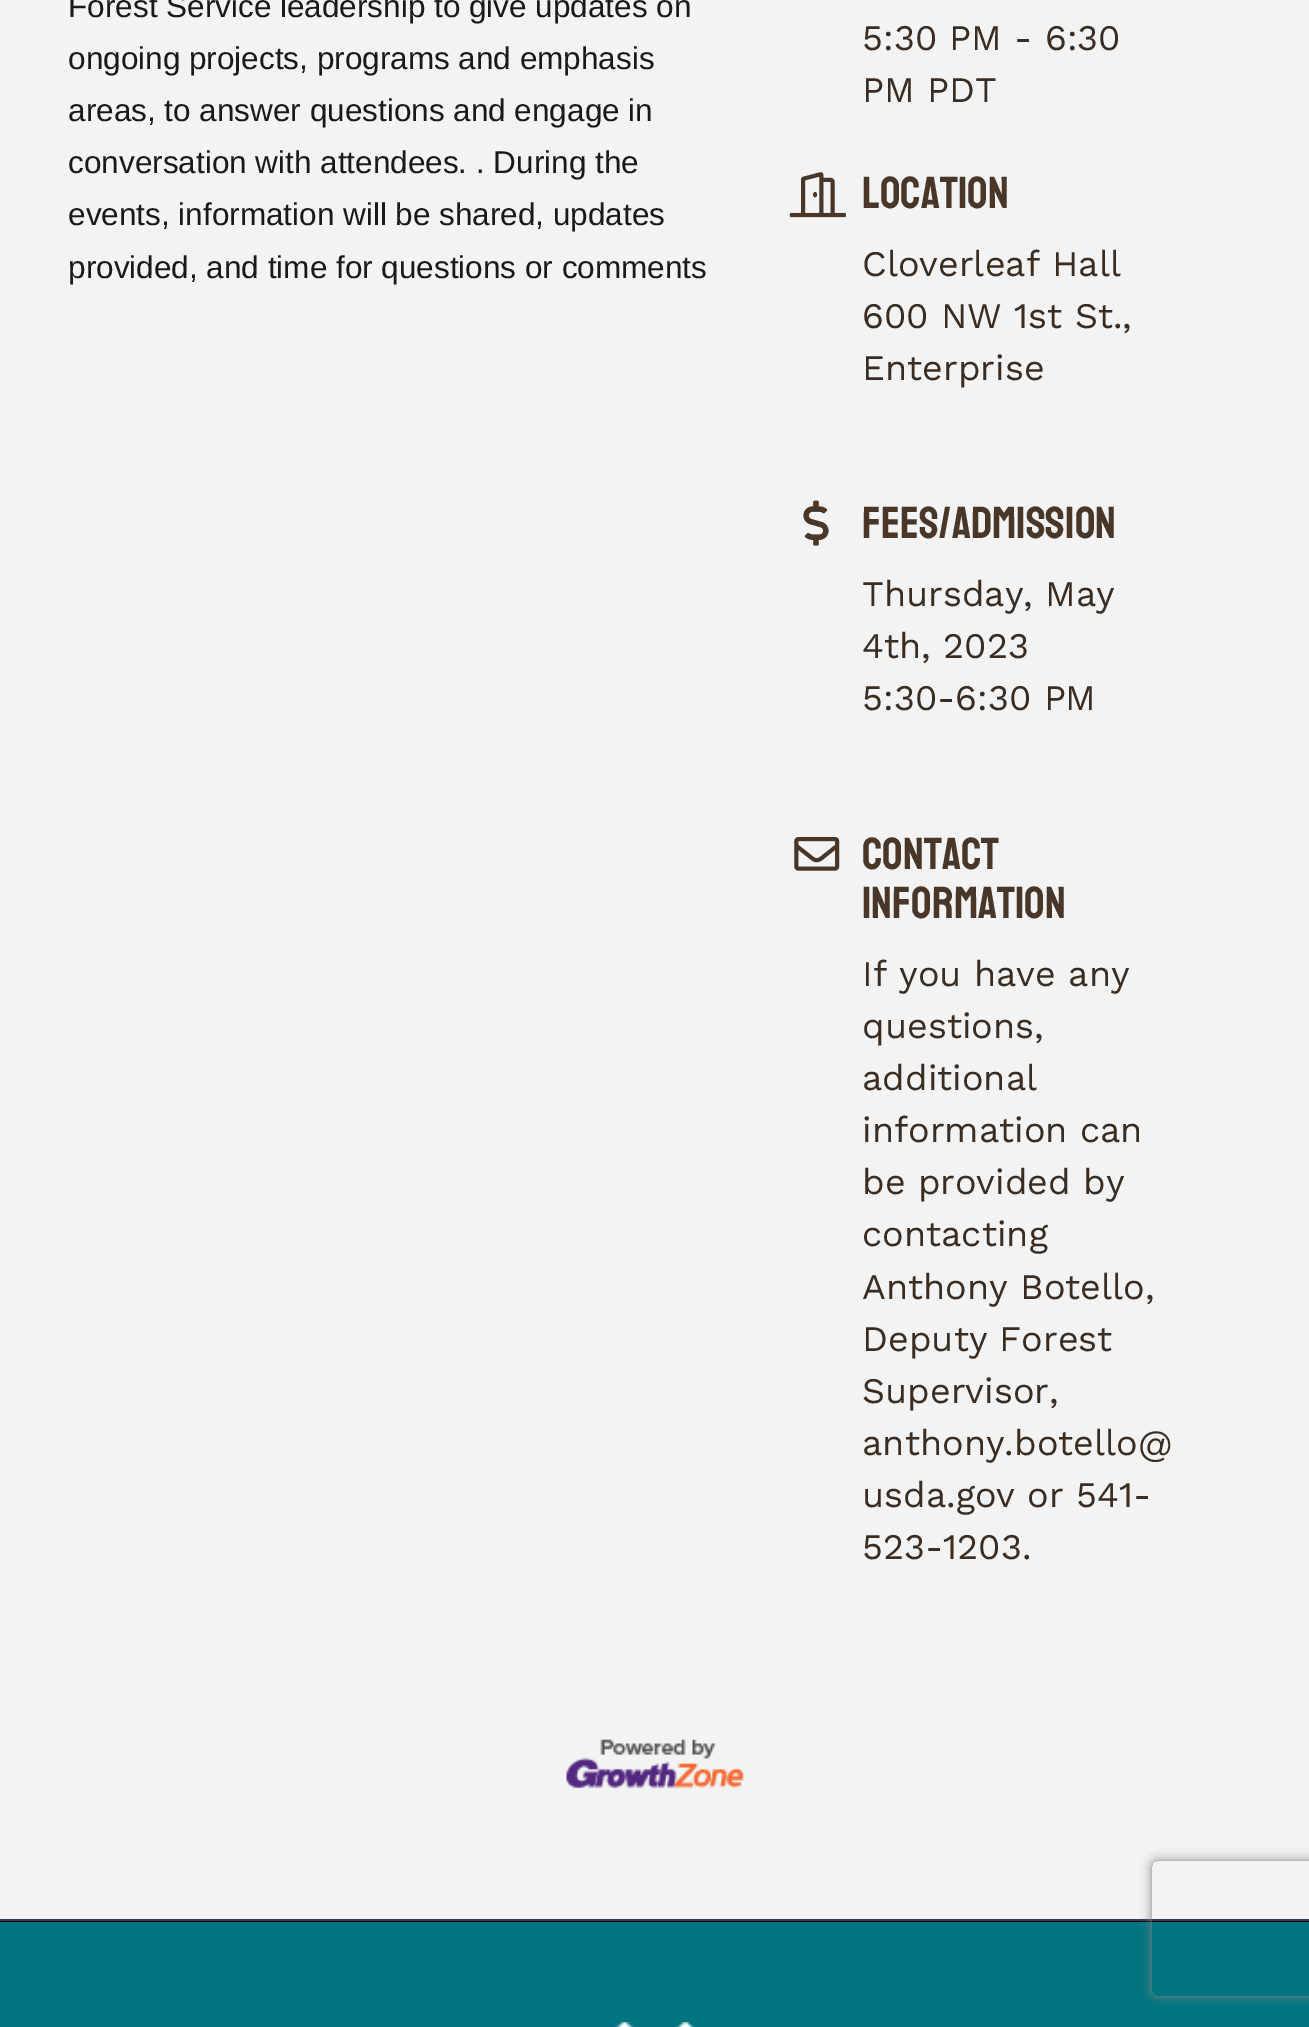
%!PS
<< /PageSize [1309 2027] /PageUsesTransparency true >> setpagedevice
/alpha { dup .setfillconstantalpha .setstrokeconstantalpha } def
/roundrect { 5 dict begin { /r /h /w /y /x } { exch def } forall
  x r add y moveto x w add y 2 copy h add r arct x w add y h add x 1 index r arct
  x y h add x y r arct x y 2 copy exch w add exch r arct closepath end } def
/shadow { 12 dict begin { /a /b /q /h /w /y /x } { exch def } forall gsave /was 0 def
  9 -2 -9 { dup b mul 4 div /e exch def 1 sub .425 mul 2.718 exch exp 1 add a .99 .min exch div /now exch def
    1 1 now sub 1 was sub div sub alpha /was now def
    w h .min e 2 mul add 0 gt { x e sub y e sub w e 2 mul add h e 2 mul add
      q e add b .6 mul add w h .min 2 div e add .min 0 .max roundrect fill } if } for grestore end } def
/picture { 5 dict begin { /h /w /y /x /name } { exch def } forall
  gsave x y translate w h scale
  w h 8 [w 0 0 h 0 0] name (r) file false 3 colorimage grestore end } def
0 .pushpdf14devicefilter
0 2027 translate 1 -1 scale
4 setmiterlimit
0 setgray
0 0 1309 2027 rectfill
0.953 setgray
0 0 1309 1919 rectfill
/LiberationSans-Regular [31.5 0 0 -31.5 0 0] selectfont
0.102 0.098 0.102 setrgbcolor
68 17 moveto (Forest Service leadership to give updates on) show
68 69 moveto (ongoing projects, programs and emphasis) show
68 121 moveto (areas, to answer questions and engage in) show
68 173 moveto (conversation with attendees. . During the) show
68 225 moveto (events, information will be shared, updates) show
68 278 moveto (provided, and time for questions or comments) show
/WorkSans-Regular [36 0 0 -36 0 0] selectfont
0.227 0.173 0.125 setrgbcolor
862 50 moveto (5:30 PM - 6:30) show
862 102 moveto (PM PDT) show
(img1.rgb) 789 172 57 46 picture
/Staatliches-Regular [45 0 0 -45 0 0] selectfont
0.282 0.216 0.161 setrgbcolor
862 208 moveto (Location) show
/WorkSans-Regular [36 0 0 -36 0 0] selectfont
0.227 0.173 0.125 setrgbcolor
862 276 moveto (Cloverleaf Hall) show
862 328 moveto (600 NW 1st St.,) show
862 380 moveto (Enterprise) show
(img2.rgb) 803 500 26 46 picture
/Staatliches-Regular [45 0 0 -45 0 0] selectfont
0.282 0.216 0.161 setrgbcolor
862 538 moveto (Fees/Admission) show
/WorkSans-Regular [36 0 0 -36 0 0] selectfont
0.227 0.173 0.125 setrgbcolor
862 606 moveto (Thursday, May) show
862 658 moveto (4th, 2023) show
862 710 moveto (5:30-6:30 PM) show
(img3.rgb) 794 837 46 34 picture
/Staatliches-Regular [45 0 0 -45 0 0] selectfont
0.282 0.216 0.161 setrgbcolor
862 869 moveto (Contact) show
862 918 moveto (Information) show
/WorkSans-Regular [36 0 0 -36 0 0] selectfont
0.227 0.173 0.125 setrgbcolor
862 986 moveto (If you have any) show
862 1038 moveto (questions,) show
862 1090 moveto (additional) show
862 1142 moveto (information can) show
862 1194 moveto (be provided by) show
862 1246 moveto (contacting) show
862 1299 moveto (Anthony Botello,) show
862 1351 moveto (Deputy Forest) show
862 1403 moveto (Supervisor,) show
862 1455 moveto (anthony.botello@) show
862 1507 moveto (usda.gov or 541-) show
862 1559 moveto (523-1203.) show
(img4.rgb) 566 1739 178 50 picture
0 0.459 0.502 setrgbcolor
0 1922 1309 105 rectfill
0.173 0.227 0.337 setrgbcolor
0 1919 1309 2 rectfill
(img5.rgb) 615 2022 81 5 picture
gsave
newpath 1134 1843 moveto 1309 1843 lineto 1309 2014 lineto 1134 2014 lineto closepath 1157 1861 moveto 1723 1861 lineto 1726 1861 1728 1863 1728 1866 curveto 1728 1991 lineto 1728 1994 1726 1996 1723 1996 curveto 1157 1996 lineto 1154 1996 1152 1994 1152 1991 curveto 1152 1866 lineto 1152 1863 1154 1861 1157 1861 curveto closepath eoclip newpath
0.502 setgray
1152 1861 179 135 5 5.5 1 shadow
grestore
.poppdf14devicefilter showpage
